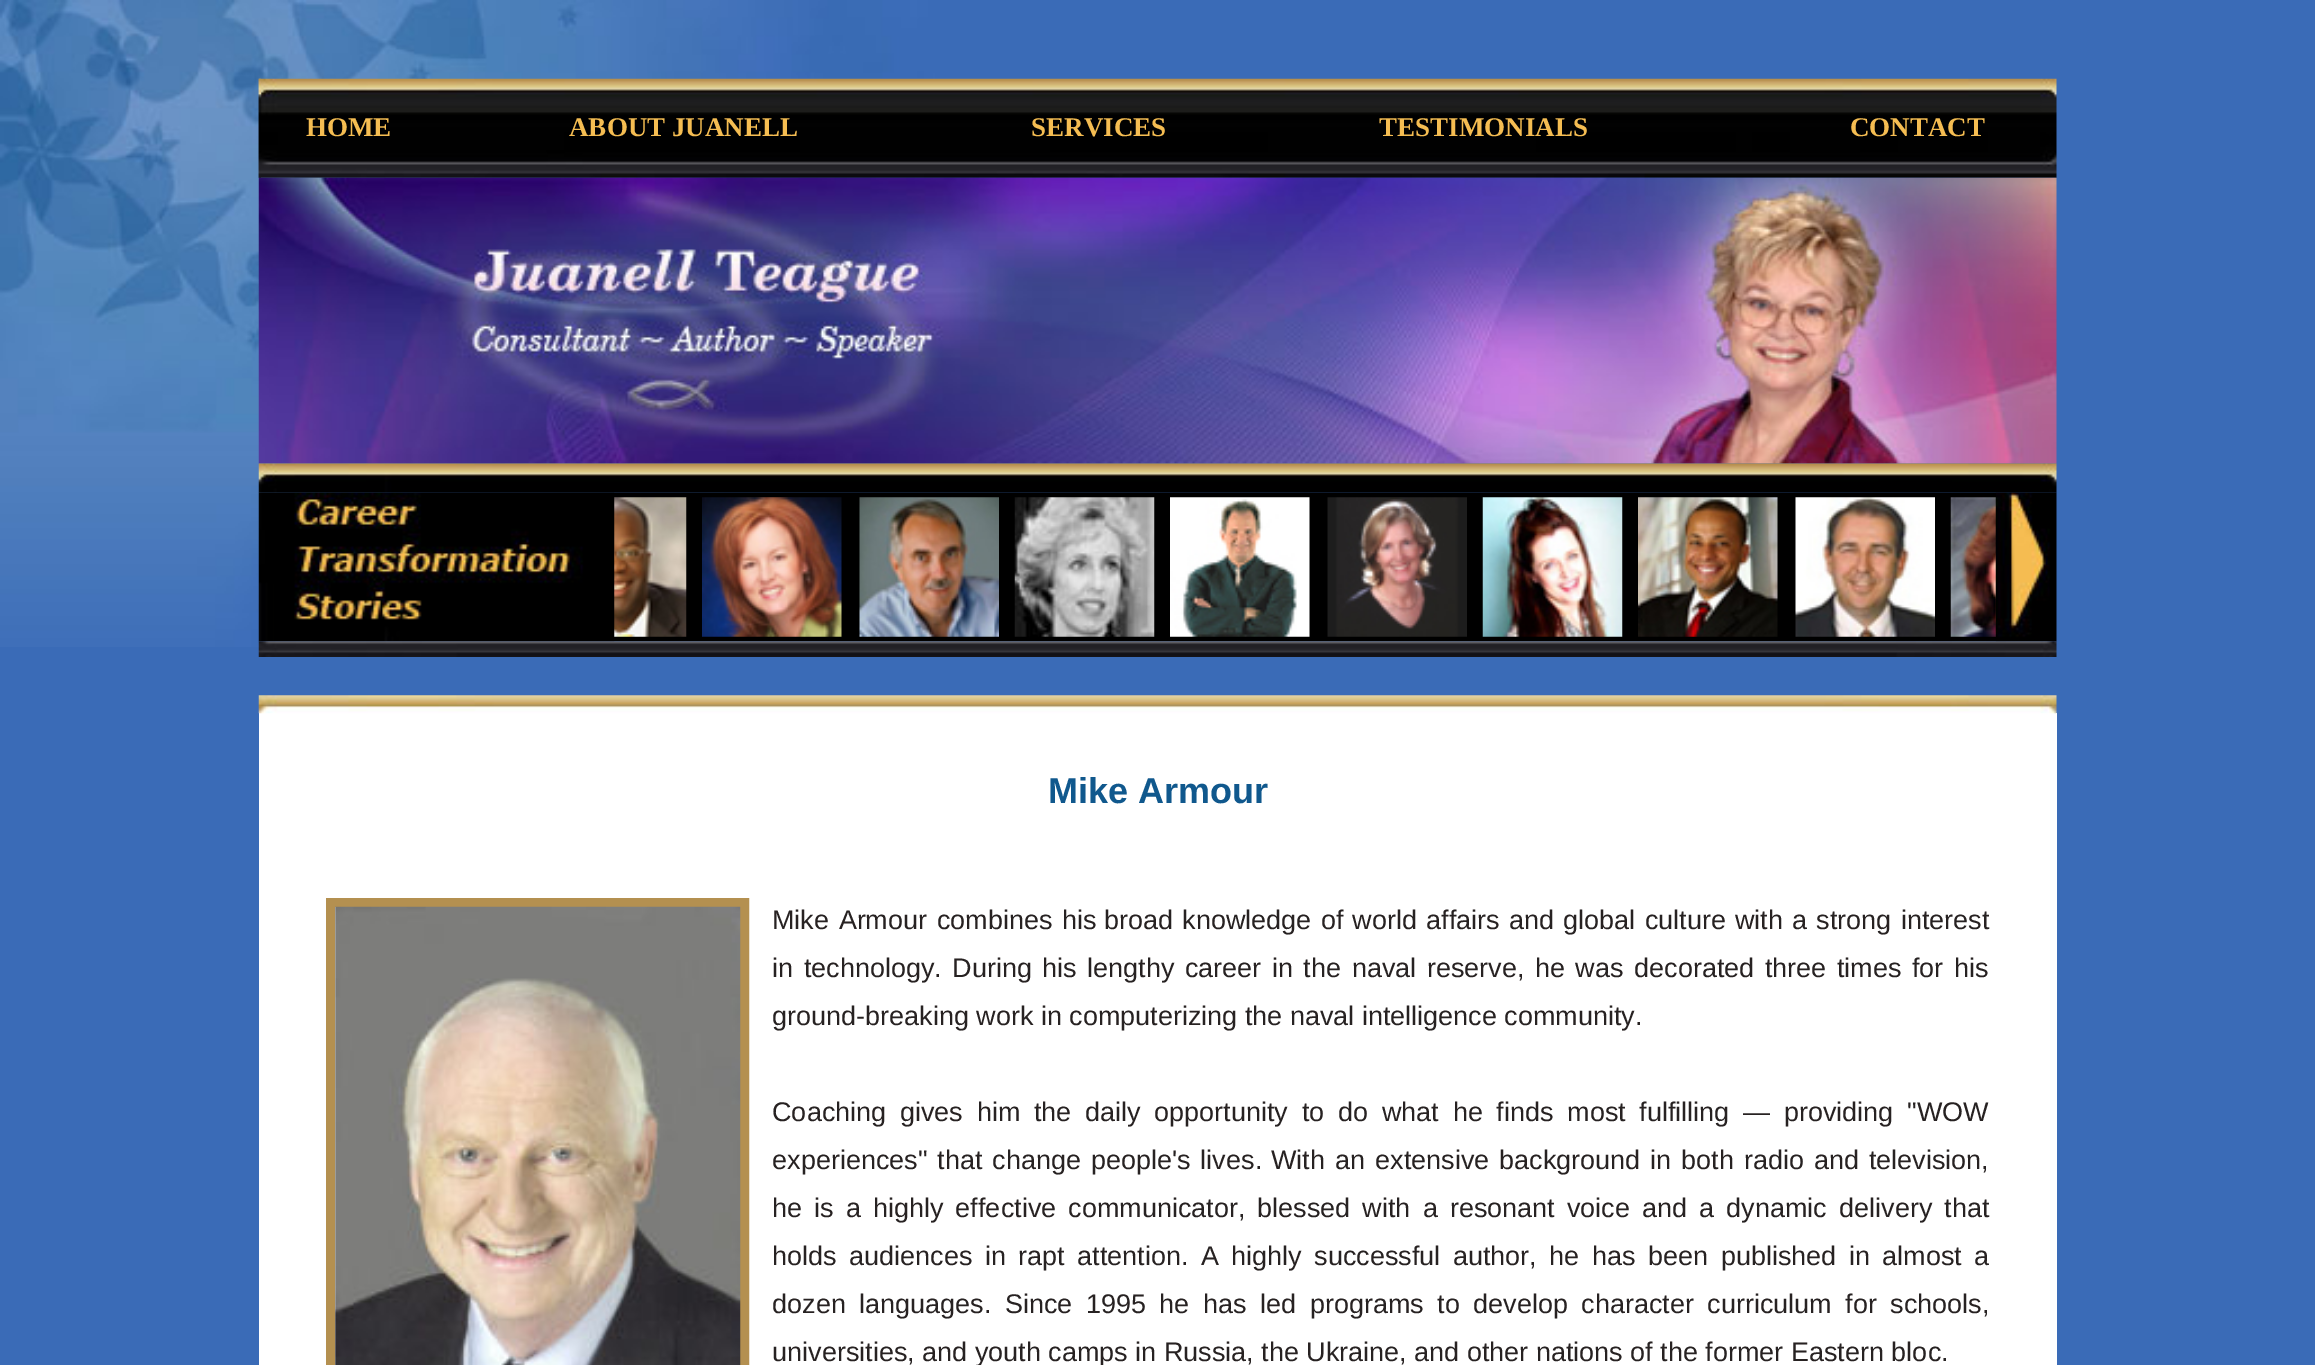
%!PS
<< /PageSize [2315 1365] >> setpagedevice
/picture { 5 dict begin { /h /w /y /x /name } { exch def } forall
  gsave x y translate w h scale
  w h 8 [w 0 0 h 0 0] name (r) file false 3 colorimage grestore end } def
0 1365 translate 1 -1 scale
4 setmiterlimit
0.227 0.42 0.718 setrgbcolor
0 0 2315 1365 rectfill
(img1.rgb) 0 0 940 647 picture
(img2.rgb) 258 78 1799 100 picture
(img3.rgb) 258 78 3 100 picture
/LiberationSerif-Bold [27 0 0 -27 0 0] selectfont
0.961 0.741 0.322 setrgbcolor
306 136 moveto (HOME) show
569 136 moveto (ABOUT JUANELL) show
1031 136 moveto (SERVICES) show
1379 136 moveto (TESTIMONIALS) show
1850 136 moveto (CONTACT) show
(img4.rgb) 258 177 1799 287 picture
(img5.rgb) 258 463 1799 30 picture
(img6.rgb) 258 492 357 150 picture
(img17.rgb) 1995 492 62 150 picture
0 setgray
614 493 1382 148 rectfill
(img7.rgb) 614 497 73 140 picture
(img8.rgb) 702 497 140 140 picture
(img9.rgb) 859 497 140 140 picture
(img10.rgb) 1014 497 141 140 picture
(img11.rgb) 1170 497 140 140 picture
(img12.rgb) 1327 497 140 140 picture
(img13.rgb) 1482 497 141 140 picture
(img14.rgb) 1638 497 140 140 picture
(img15.rgb) 1795 497 140 140 picture
(img16.rgb) 1950 497 46 140 picture
(img18.rgb) 258 641 1799 16 picture
1 setgray
259 713 1798 652 rectfill
(img19.rgb) 258 695 1799 19 picture
/LiberationSans-Bold [36 0 0 -36 0 0] selectfont
0.063 0.345 0.553 setrgbcolor
1048 803 moveto (Mike Armour) show
0.706 0.565 0.314 setrgbcolor
9 setlinewidth
330.5 902.5 414 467 rectstroke
(img20.rgb) 335 906 406 459 picture
/LiberationSans-Regular [27 0 0 -27 0 0] selectfont
0.153 0.133 0.133 setrgbcolor
772 929 moveto 2 0 32 (Mike Armour combines his) widthshow
1104 929 moveto 1.75 0 32 (broad knowledge of world affairs and global culture with a strong interest) widthshow
772 977 moveto 3.1 0 32 (in technology. During his) widthshow
1087 977 moveto 3.1 0 32 (lengthy career in the naval reserve, he was decorated three times for his) widthshow
772 1025 moveto (ground-breaking work in computerizing the naval intelligence community.) show
772 1121 moveto 6.25 0 32 (Coaching gives him the daily opportunity to do what he finds most fulfilling — providing "WOW) widthshow
772 1169 moveto 2.5 0 32 (experiences" that change people's lives.) widthshow
1271 1169 moveto 2.5 0 32 (With an extensive background in both radio and television,) widthshow
772 1217 moveto 4.6 0 32 (he is a highly effective communicator, blessed with a resonant voice and a dynamic) widthshow
1839 1217 moveto 4.6 0 32 (delivery that) widthshow
772 1265 moveto 5 0 32 (holds audiences in rapt attention. A highly successful author, he has been published in almost a) widthshow
772 1313 moveto 6 0 32 (dozen languages. Since 1995 he) widthshow
1203 1313 moveto 6 0 32 (has led programs to develop character curriculum for schools,) widthshow
772 1361 moveto (universities, and youth camps in Russia, the Ukraine, and other nations of the former Eastern bloc.) show
showpage
